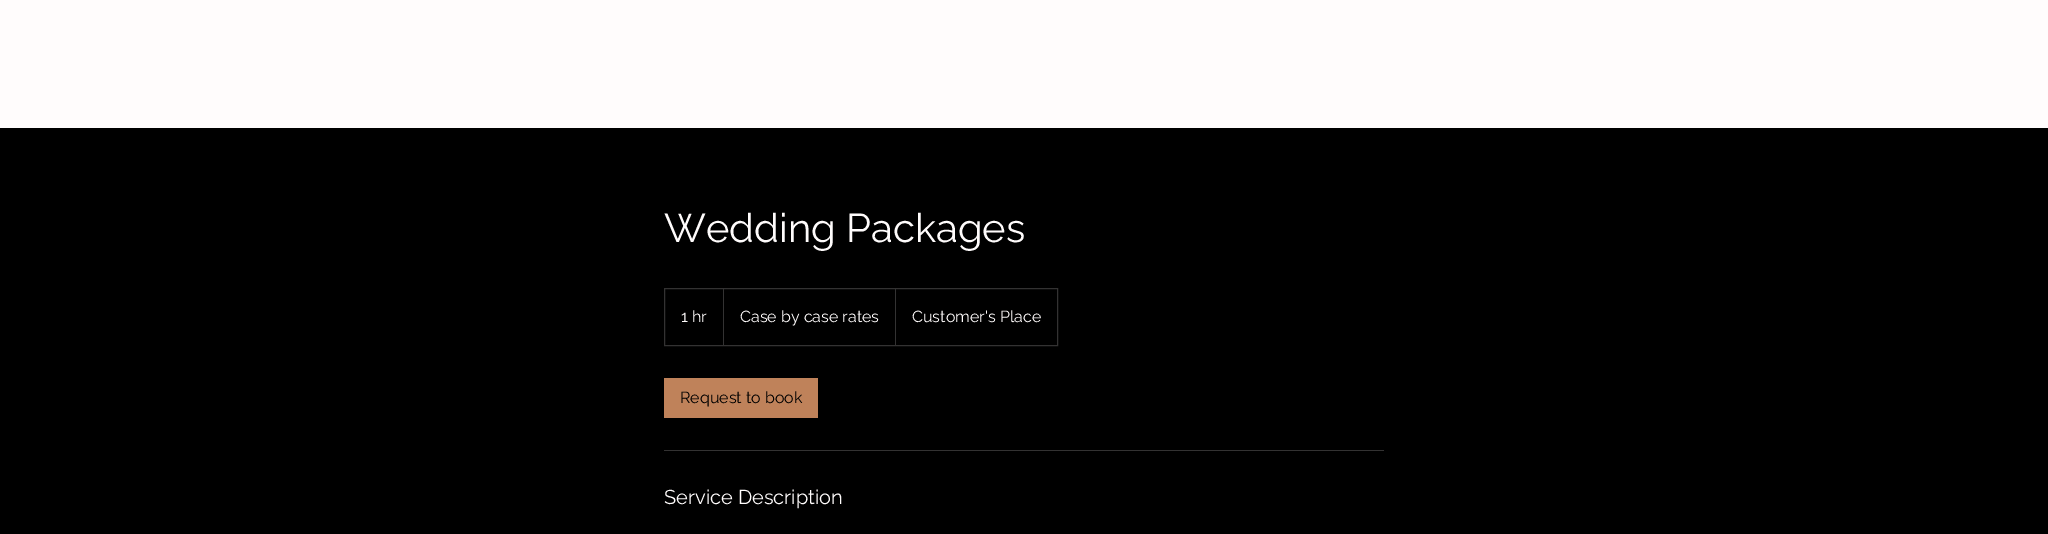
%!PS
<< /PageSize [2048 534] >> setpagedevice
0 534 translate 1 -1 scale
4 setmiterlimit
1 0.988 0.988 setrgbcolor
0 0 2048 534 rectfill
0 setgray
0 128 2048 406 rectfill
/Raleway-Regular [40 0 0 -40 0 0] selectfont
1 0.988 0.988 setrgbcolor
664 242 moveto (Wedding Packages) show
0.2 0.196 0.196 setrgbcolor
664.5 288.5 393 57 rectstroke
/Raleway-Regular [16 0 0 -16 0 0] selectfont
1 0.988 0.988 setrgbcolor
681 322 moveto (1 hr) show
0.2 0.196 0.196 setrgbcolor
newpath 723 345 moveto 723 288 lineto 724 289 lineto 724 345 lineto closepath fill
1 0.988 0.988 setrgbcolor
740 322 moveto (Case by case rates) show
0.2 0.196 0.196 setrgbcolor
newpath 895 345 moveto 895 288 lineto 896 289 lineto 896 345 lineto closepath fill
1 0.988 0.988 setrgbcolor
912 322 moveto (Customer's Place) show
0.749 0.51 0.353 setrgbcolor
664 378 154 40 rectfill
0 setgray
680 403 moveto (Request to book) show
0.2 0.196 0.196 setrgbcolor
664 450 720 1 rectfill
/Raleway-Regular [20 0 0 -20 0 0] selectfont
1 0.988 0.988 setrgbcolor
664 504 moveto (Service Description) show
showpage
